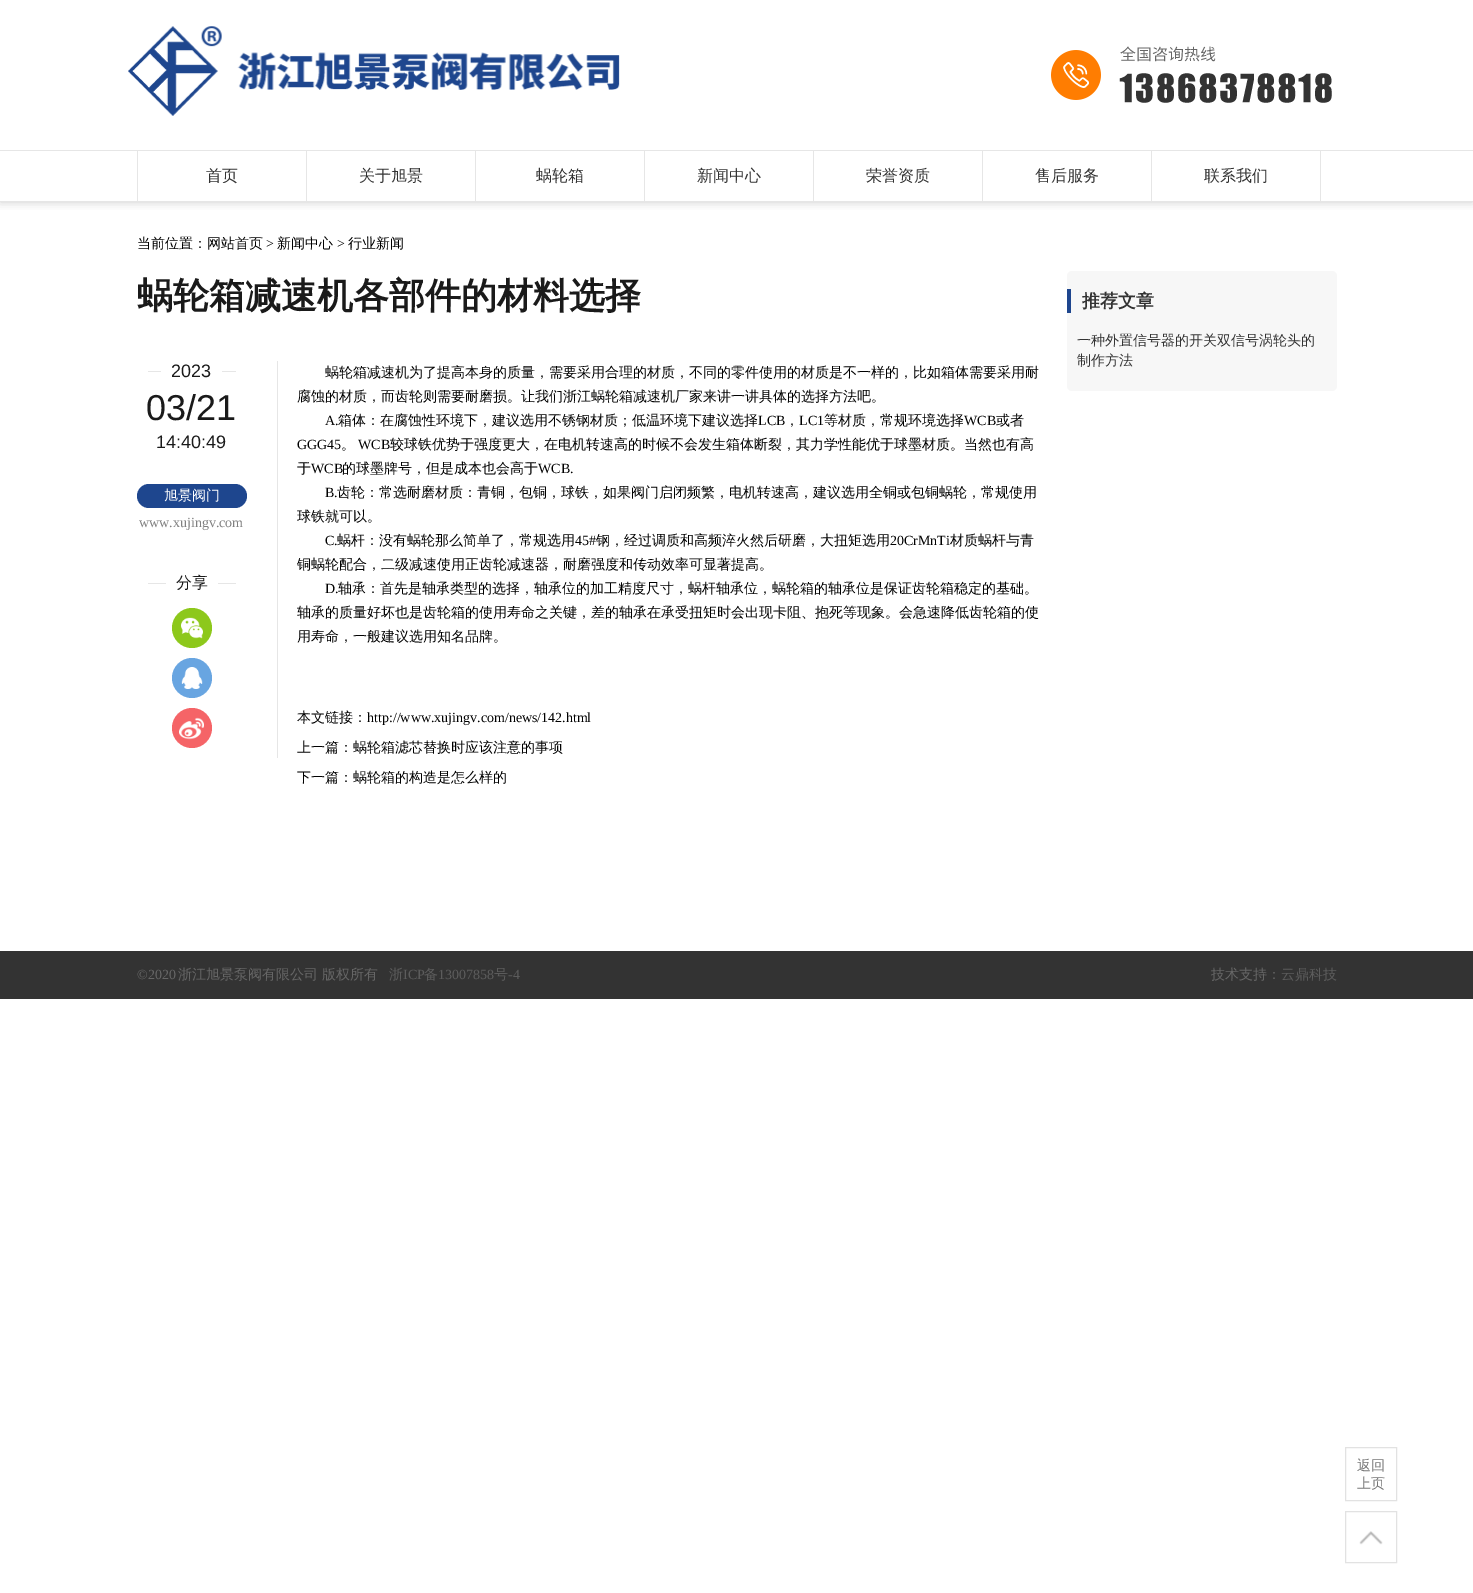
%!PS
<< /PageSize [1473 1593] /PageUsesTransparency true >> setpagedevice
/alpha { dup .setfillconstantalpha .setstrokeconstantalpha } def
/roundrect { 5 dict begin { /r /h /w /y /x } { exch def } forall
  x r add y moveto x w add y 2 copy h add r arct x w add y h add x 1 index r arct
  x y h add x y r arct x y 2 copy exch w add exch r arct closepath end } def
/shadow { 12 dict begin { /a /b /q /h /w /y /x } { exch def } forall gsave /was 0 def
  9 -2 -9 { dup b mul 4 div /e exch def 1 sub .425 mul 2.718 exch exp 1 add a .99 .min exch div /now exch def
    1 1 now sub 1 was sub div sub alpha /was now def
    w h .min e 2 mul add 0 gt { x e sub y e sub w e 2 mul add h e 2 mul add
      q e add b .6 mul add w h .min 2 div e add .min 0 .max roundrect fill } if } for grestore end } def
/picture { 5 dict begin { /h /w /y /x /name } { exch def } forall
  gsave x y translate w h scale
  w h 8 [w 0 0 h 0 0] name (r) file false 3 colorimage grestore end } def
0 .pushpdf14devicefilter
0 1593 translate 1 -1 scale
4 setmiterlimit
1 setgray
0 0 1473 1593 rectfill
gsave
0 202 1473 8 rectclip
0.502 setgray
0 0 1473 202 0 5 0.4 shadow
grestore
(img1.rgb) 128 26 492 90 picture
(img2.rgb) 1051 46 281 57 picture
0.902 setgray
0 150 1473 1 rectfill
0 201 1473 1 rectfill
306 151 1 50 rectfill
137 151 1 50 rectfill
/WenQuanYiZenHei-Medium [16 0 0 -16 0 0] selectfont
0.2 setgray
206 181 moveto (首页) show
0.902 setgray
475 151 1 50 rectfill
0.2 setgray
359 181 moveto (关于旭景) show
0.902 setgray
644 151 1 50 rectfill
0.2 setgray
536 181 moveto (蜗轮箱) show
0.902 setgray
813 151 1 50 rectfill
0.2 setgray
697 181 moveto (新闻中心) show
0.902 setgray
982 151 1 50 rectfill
0.2 setgray
866 181 moveto (荣誉资质) show
0.902 setgray
1151 151 1 50 rectfill
0.2 setgray
1035 181 moveto (售后服务) show
0.902 setgray
1320 151 1 50 rectfill
0.2 setgray
1204 181 moveto (联系我们) show
/WenQuanYiZenHei-Medium [14 0 0 -14 0 0] selectfont
0 setgray
137 248 moveto (当前位置：网站首页) show
/LiberationSerif-Regular [14 0 0 -14 0 0] selectfont
266 248 moveto (>) show
/WenQuanYiZenHei-Medium [14 0 0 -14 0 0] selectfont
277 248 moveto (新闻中心) show
/LiberationSerif-Regular [14 0 0 -14 0 0] selectfont
337 248 moveto (>) show
/WenQuanYiZenHei-Medium [14 0 0 -14 0 0] selectfont
348 248 moveto (行业新闻) show
/WenQuanYiZenHei-Bold [36 0 0 -36 0 0] selectfont
0.102 setgray
137 308 moveto (蜗轮箱减速机各部件的材料选择) show
0.902 setgray
277 361 1 397 rectfill
148 371 88 1 rectfill
1 setgray
161 371 61 1 rectfill
/LiberationSans-Regular [18 0 0 -18 0 0] selectfont
0.102 setgray
171 377 moveto (2023) show
/LiberationSans-Regular [36 0 0 -36 0 0] selectfont
146 420 moveto (03/21) show
/LiberationSans-Regular [18 0 0 -18 0 0] selectfont
156 448 moveto (14:40:49) show
0.118 0.275 0.557 setrgbcolor
137 484 110 24 12 roundrect fill
/WenQuanYiZenHei-Medium [14 0 0 -14 0 0] selectfont
1 setgray
164 500 moveto (旭景阀门) show
/LiberationSerif-Regular [14 0 0 -14 0 0] selectfont
0.502 setgray
139 527 moveto (www.xujingv.com) show
0.902 setgray
148 583 88 1 rectfill
1 setgray
166 583 52 1 rectfill
/WenQuanYiZenHei-Medium [16 0 0 -16 0 0] selectfont
0.102 setgray
176 588 moveto (分享) show
0.553 0.784 0.106 setrgbcolor
newpath 192 628 20 0 360 arc closepath fill
(img3.rgb) 181 617 22 22 picture
0.408 0.647 0.882 setrgbcolor
newpath 192 678 20 0 360 arc closepath fill
(img4.rgb) 181 667 22 22 picture
0.961 0.392 0.404 setrgbcolor
newpath 192 728 20 0 360 arc closepath fill
(img5.rgb) 179 717 25 23 picture
/WenQuanYiZenHei-Medium [14 0 0 -14 0 0] selectfont
0 setgray
325 377 moveto (蜗轮箱减速机为了提高本身的质量，需要采用合理的材质，不同的零件使用的材质是不一样的，比如箱体需要采用耐) show
297 401 moveto (腐蚀的材质，而齿轮则需要耐磨损。让我们浙江蜗轮箱减速机厂家来讲一讲具体的选择方法吧。) show
/LiberationSerif-Regular [14 0 0 -14 0 0] selectfont
325 425 moveto (A.) show
/WenQuanYiZenHei-Medium [14 0 0 -14 0 0] selectfont
338 425 moveto (箱体：在腐蚀性环境下，建议选用不锈钢材质；低温环境下建议选择) show
/LiberationSerif-Regular [14 0 0 -14 0 0] selectfont
758 425 moveto (LCB) show
/WenQuanYiZenHei-Medium [14 0 0 -14 0 0] selectfont
785 425 moveto (，) show
/LiberationSerif-Regular [14 0 0 -14 0 0] selectfont
799 425 moveto (LC1) show
/WenQuanYiZenHei-Medium [14 0 0 -14 0 0] selectfont
824 425 moveto (等材质，常规环境选择) show
/LiberationSerif-Regular [14 0 0 -14 0 0] selectfont
964 425 moveto (WCB) show
/WenQuanYiZenHei-Medium [14 0 0 -14 0 0] selectfont
996 425 moveto (或者) show
/LiberationSerif-Regular [14 0 0 -14 0 0] selectfont
297 449 moveto (GGG45) show
/WenQuanYiZenHei-Medium [14 0 0 -14 0 0] selectfont
341 449 moveto (。) show
/LiberationSerif-Regular [14 0 0 -14 0 0] selectfont
358 449 moveto (WCB) show
/WenQuanYiZenHei-Medium [14 0 0 -14 0 0] selectfont
390 449 moveto (较球铁优势于强度更大，在电机转速高的时候不会发生箱体断裂，其力学性能优于球墨材质。当然也有高) show
297 473 moveto (于) show
/LiberationSerif-Regular [14 0 0 -14 0 0] selectfont
311 473 moveto (WCB) show
/WenQuanYiZenHei-Medium [14 0 0 -14 0 0] selectfont
342 473 moveto (的球墨牌号，但是成本也会高于) show
/LiberationSerif-Regular [14 0 0 -14 0 0] selectfont
538 473 moveto (WCB.) show
325 497 moveto (B.) show
/WenQuanYiZenHei-Medium [14 0 0 -14 0 0] selectfont
337 497 moveto (齿轮：常选耐磨材质：青铜，包铜，球铁，如果阀门启闭频繁，电机转速高，建议选用全铜或包铜蜗轮，常规使用) show
gsave
297 361 750 312 rectclip
297 521 moveto (球铁就可以。) show
grestore
/LiberationSerif-Regular [14 0 0 -14 0 0] selectfont
325 545 moveto (C.) show
/WenQuanYiZenHei-Medium [14 0 0 -14 0 0] selectfont
337 545 moveto (蜗杆：没有蜗轮那么简单了，常规选用) show
/LiberationSerif-Regular [14 0 0 -14 0 0] selectfont
575 545 moveto (45#) show
/WenQuanYiZenHei-Medium [14 0 0 -14 0 0] selectfont
596 545 moveto (钢，经过调质和高频淬火然后研磨，大扭矩选用) show
/LiberationSerif-Regular [14 0 0 -14 0 0] selectfont
890 545 moveto (20CrMnTi) show
/WenQuanYiZenHei-Medium [14 0 0 -14 0 0] selectfont
950 545 moveto (材质蜗杆与青) show
297 569 moveto (铜蜗轮配合，二级减速使用正齿轮减速器，耐磨强度和传动效率可显著提高。) show
/LiberationSerif-Regular [14 0 0 -14 0 0] selectfont
325 593 moveto (D.) show
/WenQuanYiZenHei-Medium [14 0 0 -14 0 0] selectfont
338 593 moveto (轴承：首先是轴承类型的选择，轴承位的加工精度尺寸，蜗杆轴承位，蜗轮箱的轴承位是保证齿轮箱稳定的基础。) show
gsave
297 361 750 312 rectclip
297 617 moveto (轴承的质量好坏也是齿轮箱的使用寿命之关键，差的轴承在承受扭矩时会出现卡阻、抱死等现象。会急速降低齿轮箱的使) show
grestore
297 641 moveto (用寿命，一般建议选用知名品牌。) show
297 722 moveto (本文链接：) show
/LiberationSerif-Regular [14 0 0 -14 0 0] selectfont
367 722 moveto (http://www.xujingv.com/news/142.html) show
/WenQuanYiZenHei-Medium [14 0 0 -14 0 0] selectfont
297 752 moveto (上一篇：蜗轮箱滤芯替换时应该注意的事项) show
297 782 moveto (下一篇：蜗轮箱的构造是怎么样的) show
0.969 setgray
1067 271 270 120 5 roundrect fill
0.118 0.275 0.557 setrgbcolor
1067 289 4 24 rectfill
/WenQuanYiZenHei-Bold [18 0 0 -18 0 0] selectfont
0.2 setgray
1082 307 moveto (推荐文章) show
/WenQuanYiZenHei-Medium [14 0 0 -14 0 0] selectfont
1077 345 moveto (一种外置信号器的开关双信号涡轮头的) show
1077 365 moveto (制作方法) show
0 951 1473 48 rectfill
/LiberationSerif-Regular [14 0 0 -14 0 0] selectfont
0.4 setgray
137 979 moveto (©2020) show
/WenQuanYiZenHei-Medium [14 0 0 -14 0 0] selectfont
178 979 moveto (浙江旭景泵阀有限公司 版权所有) show
0.361 setgray
389 979 moveto (浙) show
/LiberationSerif-Regular [14 0 0 -14 0 0] selectfont
403 979 moveto (ICP) show
/WenQuanYiZenHei-Medium [14 0 0 -14 0 0] selectfont
424 979 moveto (备) show
/LiberationSerif-Regular [14 0 0 -14 0 0] selectfont
438 979 moveto (13007858) show
/WenQuanYiZenHei-Medium [14 0 0 -14 0 0] selectfont
494 979 moveto (号) show
/LiberationSerif-Regular [14 0 0 -14 0 0] selectfont
508 979 moveto (-4) show
/WenQuanYiZenHei-Medium [14 0 0 -14 0 0] selectfont
0.4 setgray
1211 979 moveto (技术支持：) show
0.361 setgray
1281 979 moveto (云鼎科技) show
0.886 setgray
1345.5 1447.5 51 53 rectstroke
0.459 setgray
1357 1470 moveto (返回) show
1357 1488 moveto (上页) show
(img6.rgb) 1359 1531 24 14 picture
0.886 setgray
1345.5 1511.5 51 51 rectstroke
.poppdf14devicefilter showpage
